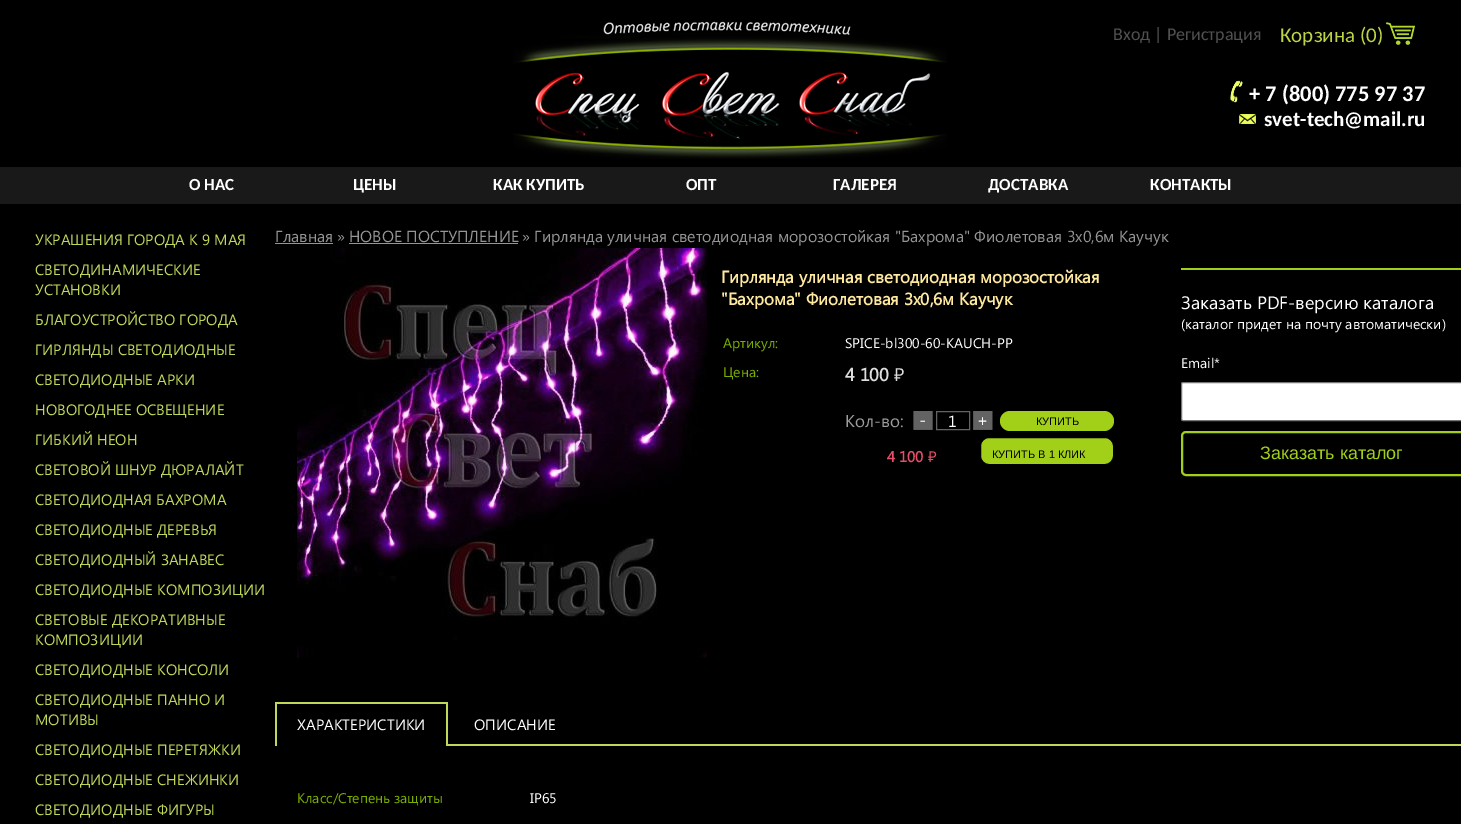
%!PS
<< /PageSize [1461 824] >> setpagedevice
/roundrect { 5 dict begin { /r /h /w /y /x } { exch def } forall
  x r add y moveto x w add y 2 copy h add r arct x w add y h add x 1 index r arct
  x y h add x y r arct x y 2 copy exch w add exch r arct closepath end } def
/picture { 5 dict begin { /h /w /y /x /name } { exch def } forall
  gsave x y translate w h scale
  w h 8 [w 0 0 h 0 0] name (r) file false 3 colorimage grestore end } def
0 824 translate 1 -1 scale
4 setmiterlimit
0 setgray
0 0 1461 824 rectfill
(img1.rgb) 513 21 434 138 picture
/Carlito-Regular [18 0 0 -18 0 0] selectfont
0.318 setgray
1113 40 moveto (Вход | Регистрация) show
(img2.rgb) 1386 22 29 23 picture
/Carlito-Regular [21 0 0 -21 0 0] selectfont
0.737 0.835 0.271 setrgbcolor
1280 42 moveto (Корзина \(0\)) show
(img3.rgb) 1230 80 13 23 picture
/Carlito-Bold [22.5 0 0 -22.5 0 0] selectfont
1 setgray
1249 101 moveto (+ 7 \(800\) 775 97 37) show
(img4.rgb) 1239 114 17 10 picture
/Carlito-Bold [21 0 0 -21 0 0] selectfont
1264 126 moveto (svet-tech@mail.ru) show
0.098 setgray
0 167 1461 37 rectfill
/Carlito-Bold [17 0 0 -17 0 0] selectfont
1 setgray
189 190 moveto (О НАС) show
353 190 moveto (ЦЕНЫ) show
493 190 moveto (КАК КУПИТЬ) show
686 190 moveto (ОПТ) show
833 190 moveto (ГАЛЕРЕЯ) show
988 190 moveto (ДОСТАВКА) show
1150 190 moveto (КОНТАКТЫ) show
/SegoeUI-Regular [15 0 0 -15 0 0] selectfont
0.749 0.847 0.353 setrgbcolor
35 245 moveto (УКРАШЕНИЯ ГОРОДА К 9 МАЯ) show
35 275 moveto (CВЕТОДИНАМИЧЕСКИЕ) show
35 295 moveto (УСТАНОВКИ) show
35 325 moveto (БЛАГОУСТРОЙСТВО ГОРОДА) show
35 355 moveto (ГИРЛЯНДЫ СВЕТОДИОДНЫЕ) show
35 385 moveto (СВЕТОДИОДНЫЕ АРКИ) show
35 415 moveto (НОВОГОДНЕЕ ОСВЕЩЕНИЕ) show
35 445 moveto (ГИБКИЙ НЕОН) show
35 475 moveto (СВЕТОВОЙ ШНУР ДЮРАЛАЙТ) show
35 505 moveto (СВЕТОДИОДНАЯ БАХРОМА) show
35 535 moveto (СВЕТОДИОДНЫЕ ДЕРЕВЬЯ) show
35 565 moveto (СВЕТОДИОДНЫЙ ЗАНАВЕС) show
35 595 moveto (СВЕТОДИОДНЫЕ КОМПОЗИЦИИ) show
35 625 moveto (СВЕТОВЫЕ ДЕКОРАТИВНЫЕ) show
35 645 moveto (КОМПОЗИЦИИ) show
35 675 moveto (СВЕТОДИОДНЫЕ КОНСОЛИ) show
35 705 moveto (СВЕТОДИОДНЫЕ ПАННО И) show
35 725 moveto (МОТИВЫ) show
35 755 moveto (СВЕТОДИОДНЫЕ ПЕРЕТЯЖКИ) show
35 785 moveto (СВЕТОДИОДНЫЕ СНЕЖИНКИ) show
35 815 moveto (СВЕТОДИОДНЫЕ ФИГУРЫ) show
/SegoeUI-Regular [16 0 0 -16 0 0] selectfont
0.584 setgray
275 242 moveto (Главная) show
275 243 58 1 rectfill
337 242 moveto (») show
349 242 moveto (НОВОЕ ПОСТУПЛЕНИЕ) show
349 243 169 1 rectfill
522 242 moveto (») show
534 242 moveto (Гирлянда уличная светодиодная морозостойкая "Бахрома" Фиолетовая 3х0,6м Каучук) show
(img5.rgb) 297 248 410 410 picture
/SegoeUI-Bold [17 0 0 -17 0 0] selectfont
1 0.914 0.62 setrgbcolor
721 283 moveto (Гирлянда уличная светодиодная морозостойкая) show
721 305 moveto ("Бахрома" Фиолетовая 3х0,6м Каучук) show
/SegoeUI-Regular [14 0 0 -14 0 0] selectfont
0.478 0.682 0 setrgbcolor
723 348 moveto (Артикул:) show
1 setgray
845 348 moveto (SPICE-bl300-60-KAUCH-PP) show
0.478 0.682 0 setrgbcolor
723 377 moveto (Цена:) show
/SegoeUI-Bold [18 0 0 -18 0 0] selectfont
0.863 setgray
845 381 moveto (4 100) show
/NotoSans-Regular [18 0 0 -18 0 0] selectfont
894 381 moveto (₽) show
/SegoeUI-Regular [17 0 0 -17 0 0] selectfont
0.612 setgray
845 427 moveto (Кол-во:) show
(img6.rgb) 913 411 20 19 picture
0.388 setgray
936.5 411.5 33 18 rectstroke
/SegoeUI-Regular [16 0 0 -16 0 0] selectfont
1 setgray
948 427 moveto (1) show
(img7.rgb) 973 411 20 19 picture
0.635 0.816 0.098 setrgbcolor
1000 411 114 20 10 roundrect fill
/LiberationSans-Regular [11 0 0 -11 0 0] selectfont
0 setgray
1036 425 moveto (КУПИТЬ) show
0.635 0.816 0.098 setrgbcolor
980 437 134 28 9 roundrect gsave fill grestore
0 setgray
2 setlinewidth
stroke
992 458 moveto (КУПИТЬ В 1 КЛИК) show
/SegoeUI-Bold [15 0 0 -15 0 0] selectfont
0.91 0.306 0.408 setrgbcolor
887 462 moveto (4 100) show
/NotoSans-Regular [15 0 0 -15 0 0] selectfont
928 462 moveto (₽) show
0.635 0.816 0.098 setrgbcolor
1181 268 280 2 rectfill
/SegoeUI-Regular [18 0 0 -18 0 0] selectfont
1 setgray
1181 309 moveto (Заказать PDF-версию каталога) show
/SegoeUI-Regular [14 0 0 -14 0 0] selectfont
1181 329 moveto (\(каталог придет на почту автоматически\)) show
1181 368 moveto (Email*) show
1181.5 382.5 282 38 1.5 roundrect gsave fill grestore
0.463 setgray
1 setlinewidth
stroke
0.635 0.816 0.098 setrgbcolor
2 setlinewidth
1182 432 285 43 4 roundrect stroke
/LiberationSans-Regular [18 0 0 -18 0 0] selectfont
1260 459 moveto (Заказать каталог) show
0.749 0.847 0.353 setrgbcolor
448 744 1013 2 rectfill
275 702 173 2 rectfill
446 702 2 44 rectfill
275 702 2 44 rectfill
/SegoeUI-Regular [15 0 0 -15 0 0] selectfont
1 setgray
297 730 moveto (ХАРАКТЕРИСТИКИ) show
474 730 moveto (ОПИСАНИЕ) show
/SegoeUI-Regular [14 0 0 -14 0 0] selectfont
0.478 0.682 0 setrgbcolor
297 803 moveto (Класс/Cтепень защиты) show
1 setgray
530 803 moveto (IP65) show
showpage
